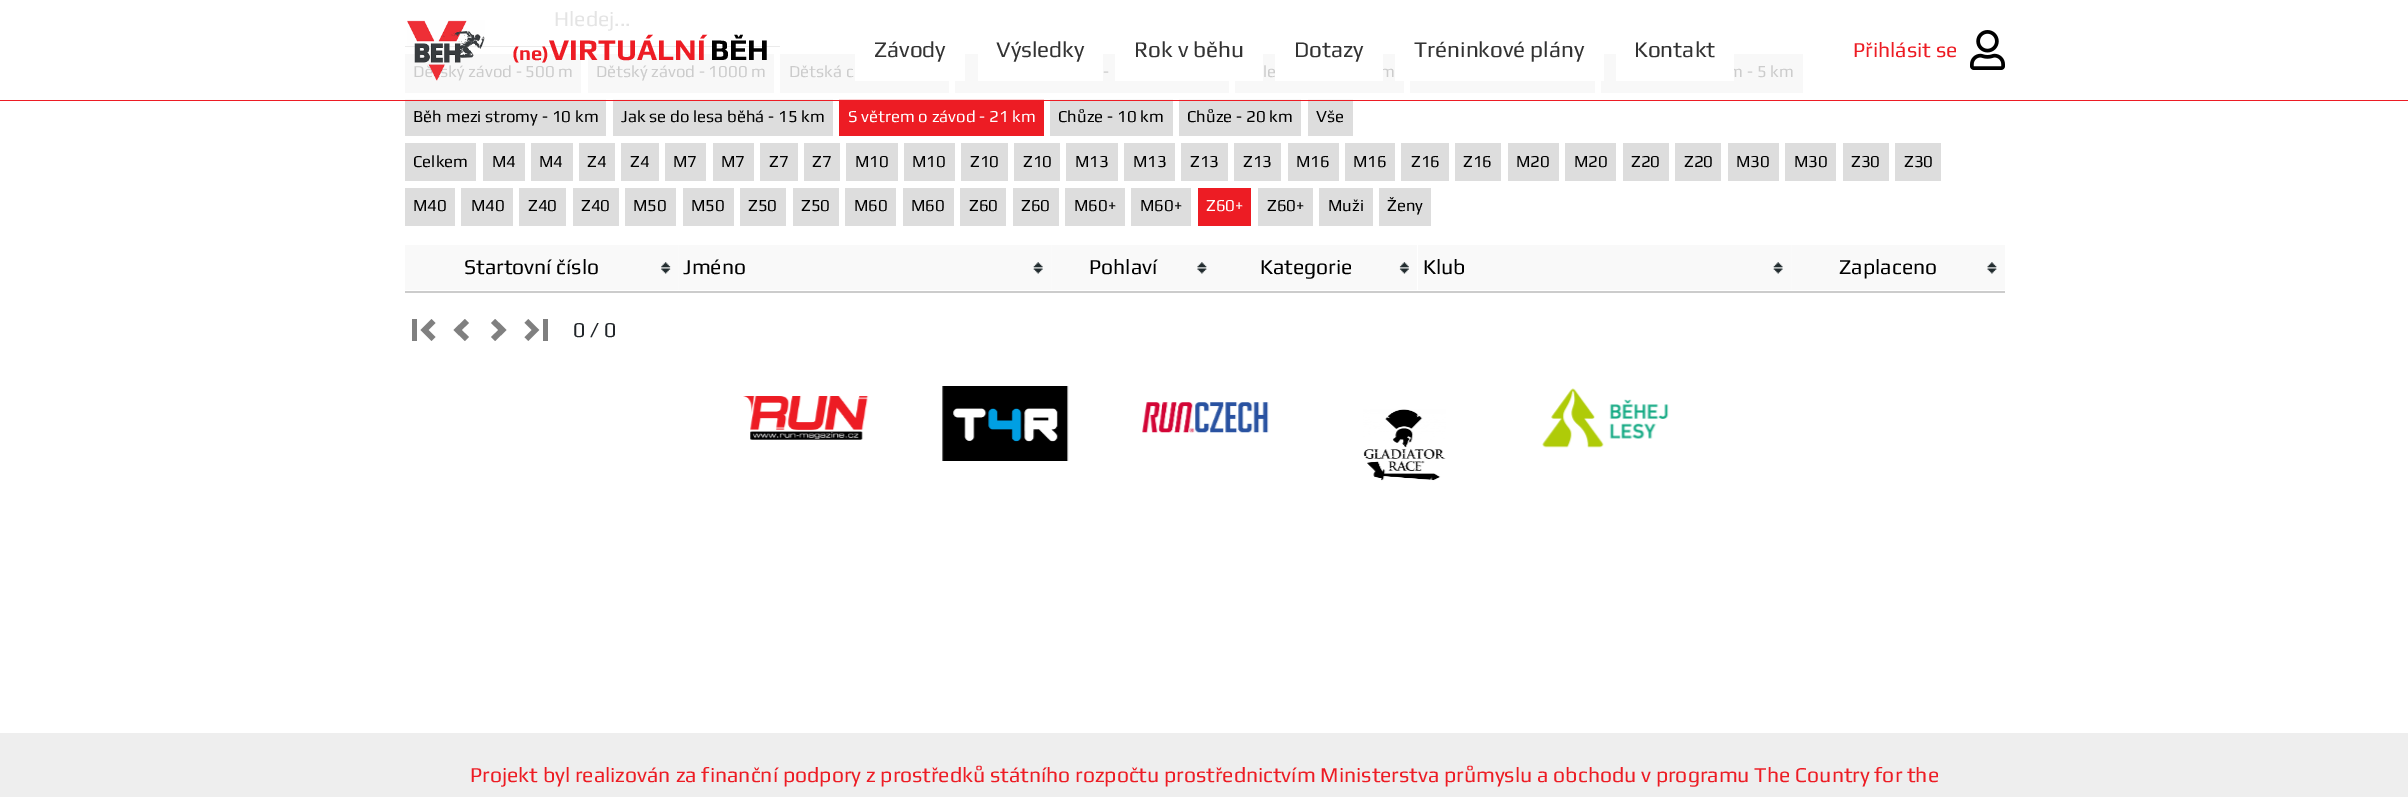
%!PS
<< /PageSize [2408 797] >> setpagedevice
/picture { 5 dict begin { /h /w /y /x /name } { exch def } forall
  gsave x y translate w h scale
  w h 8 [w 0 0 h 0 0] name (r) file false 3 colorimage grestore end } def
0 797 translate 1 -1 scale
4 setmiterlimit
1 setgray
0 0 2408 797 rectfill
0.922 setgray
405 46 375 1 rectfill
/Play-Regular [21.25 0 0 -21.25 0 0] selectfont
0.894 setgray
554 26 moveto (Hledej...) show
0.973 setgray
405 54 176 39 rectfill
/Play-Regular [16.75 0 0 -16.75 0 0] selectfont
0.8 setgray
413 77 moveto (Dětský závod - 500 m) show
0.973 setgray
588 54 186 39 rectfill
0.8 setgray
596 77 moveto (Dětský závod - 1000 m) show
0.973 setgray
780 54 169 39 rectfill
0.8 setgray
789 77 moveto (Dětská c) show
0.973 setgray
955 54 274 39 rectfill
0.8 setgray
1103 77 moveto (-) show
0.973 setgray
1235 54 169 39 rectfill
0.8 setgray
1263 77 moveto (le) show
1380 77 moveto (m) show
0.973 setgray
1601 54 202 39 rectfill
0.8 setgray
1728 77 moveto (m - 5 km) show
0.973 setgray
1410 81 185 12 rectfill
0.867 setgray
405 101 201 35 rectfill
0.973 setgray
405 99 201 1 rectfill
0 setgray
413 122 moveto (Běh mezi stromy - 10 km) show
0.867 setgray
613 101 220 35 rectfill
0.973 setgray
613 99 220 1 rectfill
0 setgray
621 122 moveto (Jak se do lesa běhá - 15 km) show
0.929 0.11 0.141 setrgbcolor
839 101 205 35 rectfill
0.984 0.824 0.827 setrgbcolor
839 99 205 1 rectfill
1 setgray
848 122 moveto (S větrem o závod - 21 km) show
0.867 setgray
1050 101 123 35 rectfill
0.973 setgray
1050 99 123 1 rectfill
0 setgray
1058 122 moveto (Chůze - 10 km) show
0.867 setgray
1179 101 122 35 rectfill
0.973 setgray
1179 99 122 1 rectfill
0 setgray
1187 122 moveto (Chůze - 20 km) show
0.867 setgray
1308 101 45 35 rectfill
0.973 setgray
1308 99 45 1 rectfill
0 setgray
1316 122 moveto (Vše) show
0.867 setgray
405 143 71 38 rectfill
0 setgray
413 167 moveto (Celkem) show
0.867 setgray
483 143 42 38 rectfill
0 setgray
492 167 moveto (M4) show
0.867 setgray
531 143 42 38 rectfill
0 setgray
539 167 moveto (M4) show
0.867 setgray
579 143 36 38 rectfill
0 setgray
587 167 moveto (Z4) show
0.867 setgray
621 143 38 38 rectfill
0 setgray
630 167 moveto (Z4) show
0.867 setgray
665 143 41 38 rectfill
0 setgray
673 167 moveto (M7) show
0.867 setgray
713 143 41 38 rectfill
0 setgray
721 167 moveto (M7) show
0.867 setgray
760 143 38 38 rectfill
0 setgray
769 167 moveto (Z7) show
0.867 setgray
804 143 36 38 rectfill
0 setgray
812 167 moveto (Z7) show
0.867 setgray
846 143 52 38 rectfill
0 setgray
855 167 moveto (M10) show
0.867 setgray
904 143 51 38 rectfill
0 setgray
912 167 moveto (M10) show
0.867 setgray
961 143 47 38 rectfill
0 setgray
970 167 moveto (Z10) show
0.867 setgray
1014 143 46 38 rectfill
0 setgray
1023 167 moveto (Z10) show
0.867 setgray
1066 143 52 38 rectfill
0 setgray
1075 167 moveto (M13) show
0.867 setgray
1124 143 51 38 rectfill
0 setgray
1133 167 moveto (M13) show
0.867 setgray
1181 143 47 38 rectfill
0 setgray
1190 167 moveto (Z13) show
0.867 setgray
1234 143 47 38 rectfill
0 setgray
1243 167 moveto (Z13) show
0.867 setgray
1288 143 51 38 rectfill
0 setgray
1296 167 moveto (M16) show
0.867 setgray
1345 143 50 38 rectfill
0 setgray
1353 167 moveto (M16) show
0.867 setgray
1401 143 48 38 rectfill
0 setgray
1411 167 moveto (Z16) show
0.867 setgray
1455 143 46 38 rectfill
0 setgray
1463 167 moveto (Z16) show
0.867 setgray
1508 143 51 38 rectfill
0 setgray
1516 167 moveto (M20) show
0.867 setgray
1565 143 51 38 rectfill
0 setgray
1574 167 moveto (M20) show
0.867 setgray
1623 143 46 38 rectfill
0 setgray
1631 167 moveto (Z20) show
0.867 setgray
1675 143 46 38 rectfill
0 setgray
1684 167 moveto (Z20) show
0.867 setgray
1728 143 51 38 rectfill
0 setgray
1736 167 moveto (M30) show
0.867 setgray
1785 143 51 38 rectfill
0 setgray
1794 167 moveto (M30) show
0.867 setgray
1843 143 46 38 rectfill
0 setgray
1851 167 moveto (Z30) show
0.867 setgray
1895 143 46 38 rectfill
0 setgray
1904 167 moveto (Z30) show
0.867 setgray
405 188 50 38 rectfill
0 setgray
413 211 moveto (M40) show
0.867 setgray
461 188 52 38 rectfill
0 setgray
471 211 moveto (M40) show
0.867 setgray
519 188 47 38 rectfill
0 setgray
528 211 moveto (Z40) show
0.867 setgray
573 188 46 38 rectfill
0 setgray
581 211 moveto (Z40) show
0.867 setgray
625 188 51 38 rectfill
0 setgray
633 211 moveto (M50) show
0.867 setgray
683 188 51 38 rectfill
0 setgray
691 211 moveto (M50) show
0.867 setgray
740 188 46 38 rectfill
0 setgray
748 211 moveto (Z50) show
0.867 setgray
793 188 46 38 rectfill
0 setgray
801 211 moveto (Z50) show
0.867 setgray
845 188 51 38 rectfill
0 setgray
854 211 moveto (M60) show
0.867 setgray
903 188 51 38 rectfill
0 setgray
911 211 moveto (M60) show
0.867 setgray
960 188 46 38 rectfill
0 setgray
969 211 moveto (Z60) show
0.867 setgray
1013 188 46 38 rectfill
0 setgray
1021 211 moveto (Z60) show
0.867 setgray
1065 188 60 38 rectfill
0 setgray
1074 211 moveto (M60+) show
0.867 setgray
1131 188 60 38 rectfill
0 setgray
1140 211 moveto (M60+) show
0.929 0.11 0.141 setrgbcolor
1198 188 53 38 rectfill
1 setgray
1206 211 moveto (Z60+) show
0.867 setgray
1258 188 55 38 rectfill
0 setgray
1267 211 moveto (Z60+) show
0.867 setgray
1319 188 54 38 rectfill
0 setgray
1328 211 moveto (Muži) show
0.867 setgray
1379 188 52 38 rectfill
0 setgray
1387 211 moveto (Ženy) show
(img1.rgb) 405 245 274 45 picture
/Play-Regular [21.25 0 0 -21.25 0 0] selectfont
464 274 moveto (Startovní číslo) show
(img2.rgb) 679 245 372 45 picture
683 274 moveto (Jméno) show
(img3.rgb) 1051 245 164 45 picture
1089 274 moveto (Pohlaví) show
(img4.rgb) 1215 245 202 45 picture
1260 274 moveto (Kategorie) show
(img5.rgb) 1418 245 373 45 picture
1423 274 moveto (Klub) show
0.8 setgray
405 291 1600 2 rectfill
(img6.rgb) 1791 245 214 45 picture
0 setgray
1839 274 moveto (Zaplaceno) show
0.502 setgray
newpath 428.5 330 moveto 435.5 323 lineto 431.5 319 lineto 420.5 330 lineto 431.5 341 lineto 435.5 337 lineto closepath fill
412 319 5 22 rectfill
newpath 461.5 330 moveto 469 323 lineto 465 319 lineto 453.5 330 lineto 465 341 lineto 469 337 lineto closepath 502.5 326 moveto 495 319 lineto 491 323 lineto 498.5 330 lineto 491 337 lineto 495 341 lineto 506.5 330 lineto closepath fill
(img7.rgb) 524 319 24 22 picture
0.129 0.145 0.161 setrgbcolor
573 337 moveto (0 / 0) show
(img8.rgb) 743 396 126 44 picture
(img9.rgb) 942 386 127 75 picture
(img10.rgb) 1142 402 127 31 picture
(img11.rgb) 1363 409 83 72 picture
(img12.rgb) 1542 388 127 60 picture
0.933 setgray
0 733 2408 64 rectfill
0.929 0.11 0.141 setrgbcolor
470 782 moveto (Projekt byl realizován za finanční podpory z prostředků státního rozpočtu prostřednictvím Ministerstva průmyslu a obchodu v programu The Country for the) show
0 100 2408 1 rectfill
(img13.rgb) 407 20 78 61 picture
/Play-Bold [20 0 0 -20 0 0] selectfont
512 60 moveto (\(ne\)) show
/Play-Bold [30 0 0 -30 0 0] selectfont
549 60 moveto (VIRTUÁLNÍ) show
0 setgray
710 60 moveto (BĚH) show
1 setgray
855 54 110 27 rectfill
/Play-Regular [22.5 0 0 -22.5 0 0] selectfont
0.2 setgray
874 57 moveto (Závody) show
1 setgray
978 54 125 27 rectfill
0.2 setgray
996 57 moveto (Výsledky) show
1 setgray
1115 54 148 27 rectfill
0.2 setgray
1134 57 moveto (Rok v běhu) show
1 setgray
1275 54 108 27 rectfill
0.2 setgray
1294 57 moveto (Dotazy) show
1 setgray
1395 54 209 27 rectfill
0.2 setgray
1414 57 moveto (Tréninkové plány) show
1 setgray
1616 54 118 27 rectfill
0.2 setgray
1634 57 moveto (Kontakt) show
/Play-Regular [21.25 0 0 -21.25 0 0] selectfont
0.929 0.11 0.141 setrgbcolor
1853 57 moveto (Přihlásit se) show
(img14.rgb) 1970 30 35 40 picture
showpage
